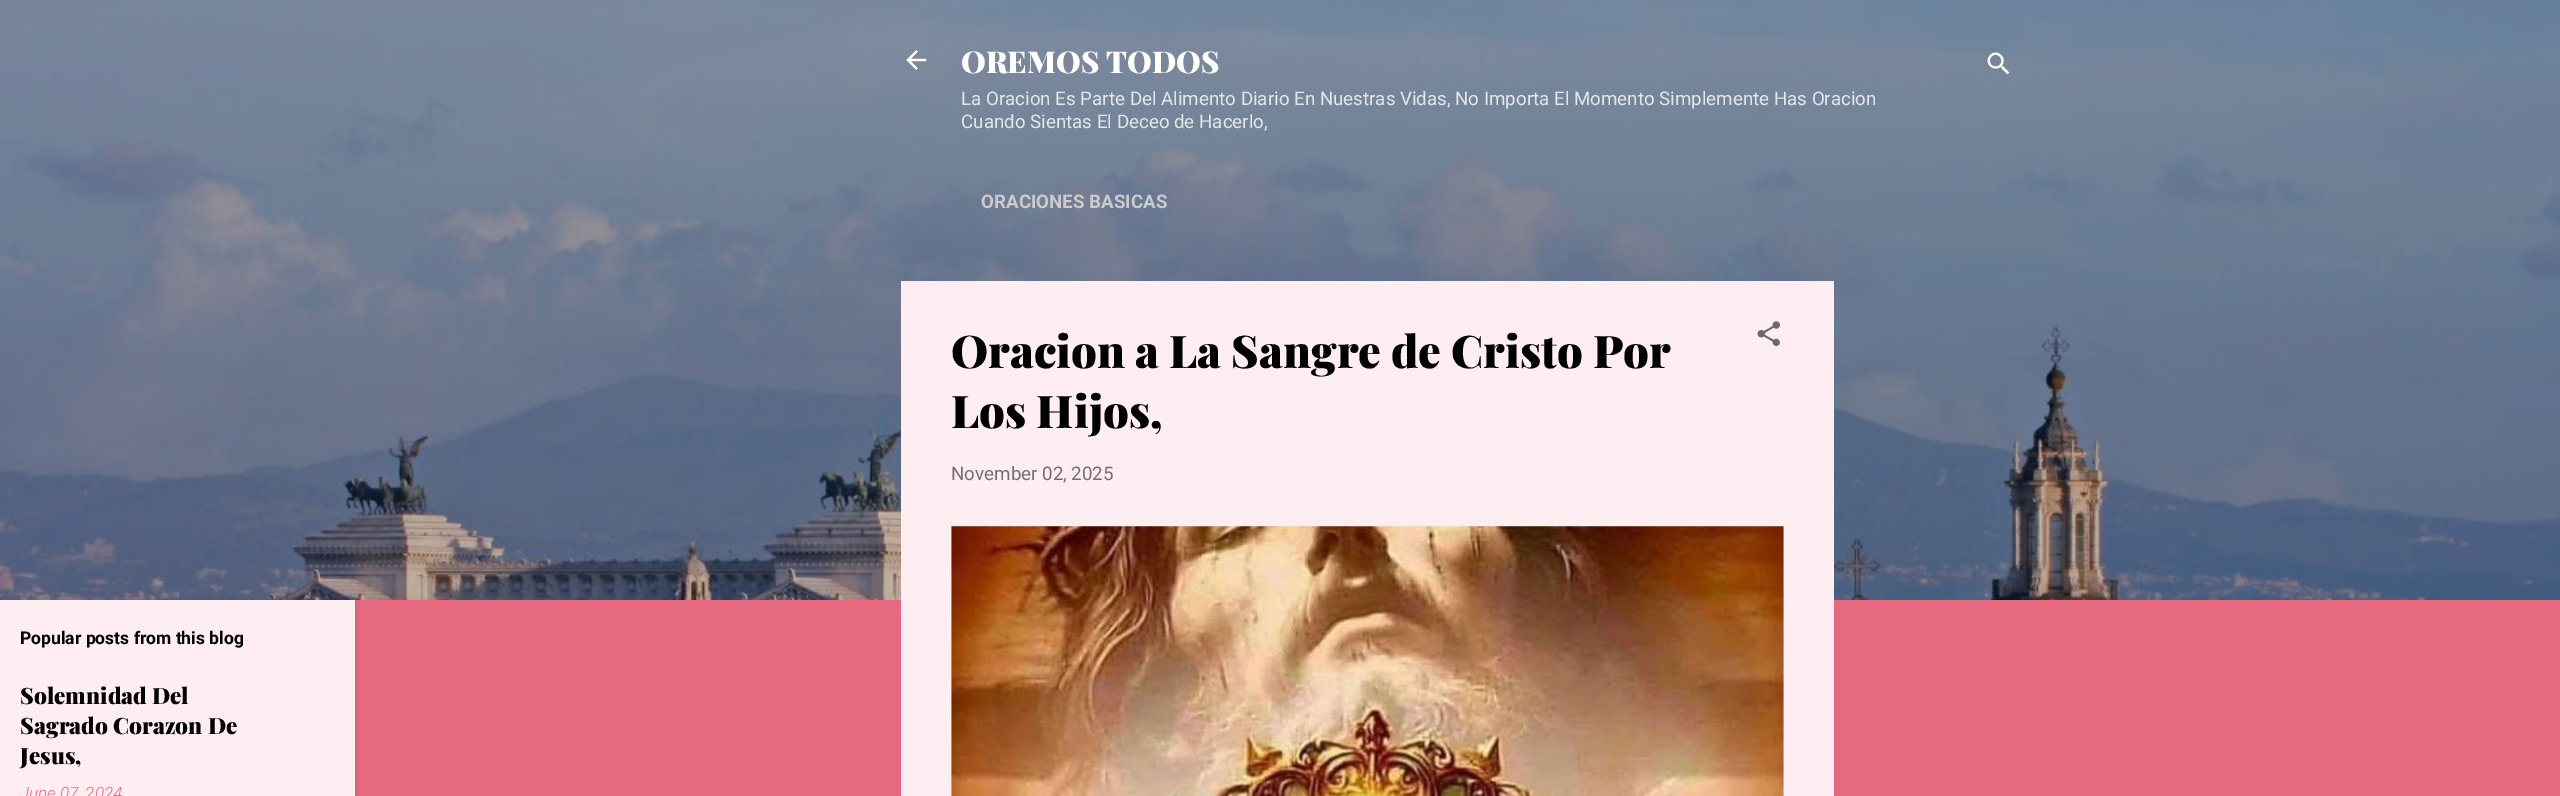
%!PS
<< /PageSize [2560 796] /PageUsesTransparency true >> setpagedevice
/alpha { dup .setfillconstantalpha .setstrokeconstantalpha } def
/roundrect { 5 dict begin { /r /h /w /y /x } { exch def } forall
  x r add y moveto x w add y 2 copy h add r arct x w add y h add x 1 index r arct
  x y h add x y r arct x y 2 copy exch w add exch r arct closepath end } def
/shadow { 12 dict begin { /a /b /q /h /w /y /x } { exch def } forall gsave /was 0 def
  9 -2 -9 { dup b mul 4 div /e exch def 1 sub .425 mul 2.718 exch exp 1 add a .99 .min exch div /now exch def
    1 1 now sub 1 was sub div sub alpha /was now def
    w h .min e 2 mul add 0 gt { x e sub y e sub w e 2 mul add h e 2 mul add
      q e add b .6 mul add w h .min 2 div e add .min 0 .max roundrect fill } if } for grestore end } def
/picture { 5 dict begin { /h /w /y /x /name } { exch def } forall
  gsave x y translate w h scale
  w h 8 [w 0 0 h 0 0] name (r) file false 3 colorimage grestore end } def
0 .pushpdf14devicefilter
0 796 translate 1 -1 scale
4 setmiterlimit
0.902 0.412 0.502 setrgbcolor
0 0 2560 796 rectfill
(img1.rgb) 0 0 2560 600 picture
(img2.rgb) 906 50 21 20 picture
/PlayfairDisplay-Black [30 0 0 -30 0 0] selectfont
1 setgray
961 73 moveto (OREMOS TODOS) show
/Roboto-Regular [18.75 0 0 -18.75 0 0] selectfont
0.89 0.906 0.922 setrgbcolor
961 105 moveto (La Oracion Es Parte Del Alimento Diario En Nuestras Vidas, No Importa El Momento Simplemente Has Oracion) show
961 128 moveto (Cuando Sientas El Deceo de Hacerlo,) show
/Roboto-Bold [18.75 0 0 -18.75 0 0] selectfont
0.796 setgray
981 208 moveto (ORACIONES BASICAS) show
(img3.rgb) 1987 52 23 23 picture
1 0.933 0.945 setrgbcolor
901 281 933 515 rectfill
/PlayfairDisplay-Black [45 0 0 -45 0 0] selectfont
0 setgray
951 368 moveto (Oracion a La Sangre de Cristo Por) show
951 428 moveto (Los Hijos,) show
(img4.rgb) 1757 321 23 26 picture
/Roboto-Regular [18.75 0 0 -18.75 0 0] selectfont
0.463 0.431 0.439 setrgbcolor
951 480 moveto (November 02, 2025) show
(img5.rgb) 951 526 833 270 picture
0 setgray
1 601 355 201 0 2 0.1 shadow
1 0.933 0.945 setrgbcolor
0 600 355 196 rectfill
/Roboto-Bold [17.5 0 0 -17.5 0 0] selectfont
0 setgray
20 644 moveto (Popular posts from this blog) show
/PlayfairDisplay-Black [22.5 0 0 -22.5 0 0] selectfont
20 704 moveto (Solemnidad Del) show
20 734 moveto (Sagrado Corazon De) show
20 764 moveto (Jesus,) show
/Roboto-LightItalic [17 0 0 -17 0 0] selectfont
0.902 0.412 0.502 setrgbcolor
20 799 moveto (June 07, 2024) show
.poppdf14devicefilter showpage
